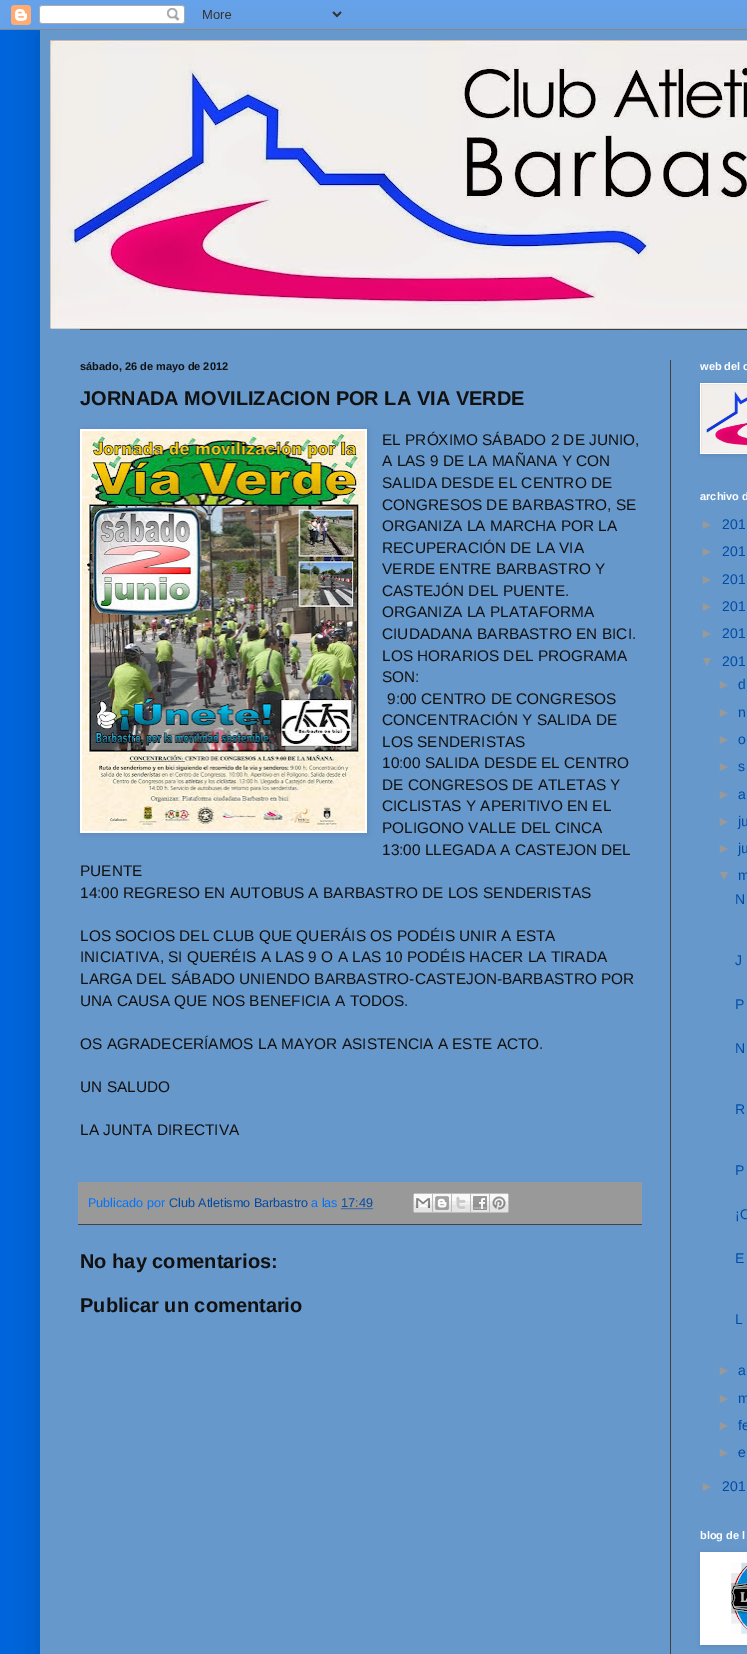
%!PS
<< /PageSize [747 1654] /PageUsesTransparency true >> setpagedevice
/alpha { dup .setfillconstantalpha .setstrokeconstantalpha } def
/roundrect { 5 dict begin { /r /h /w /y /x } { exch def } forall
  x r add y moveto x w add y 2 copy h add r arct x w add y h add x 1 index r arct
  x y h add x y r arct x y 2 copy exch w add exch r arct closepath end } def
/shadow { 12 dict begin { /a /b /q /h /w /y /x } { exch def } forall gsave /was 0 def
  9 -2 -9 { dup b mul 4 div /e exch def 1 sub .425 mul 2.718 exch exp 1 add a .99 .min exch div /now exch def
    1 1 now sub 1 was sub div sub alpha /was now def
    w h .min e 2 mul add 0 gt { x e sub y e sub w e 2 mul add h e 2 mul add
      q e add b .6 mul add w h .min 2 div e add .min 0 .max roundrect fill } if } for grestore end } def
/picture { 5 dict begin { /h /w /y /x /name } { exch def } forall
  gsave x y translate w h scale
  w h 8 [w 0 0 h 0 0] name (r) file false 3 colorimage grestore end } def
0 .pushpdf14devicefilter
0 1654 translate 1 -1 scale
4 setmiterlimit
0 0.396 0.867 setrgbcolor
0 0 747 1654 rectfill
0 setgray
40 30 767 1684 0 20 0.15 shadow
(img1.rgb) 0 0 747 30 picture
0.4 0.596 0.8 setrgbcolor
40 30 707 1624 rectfill
(img2.rgb) 50 40 697 289 picture
0.251 setgray
80 329 667 1 rectfill
670 360 1 1294 rectfill
/LiberationSans-Bold [11 0 0 -11 0 0] selectfont
0.067 setgray
80 370 moveto (sábado, 26 de mayo de 2012) show
/LiberationSans-Bold [20 0 0 -20 0 0] selectfont
80 405 moveto (JORNADA MOVILIZACION POR LA VIA VERDE) show
0 setgray
81 430 287 404 0 2.5 0.1 shadow
1 setgray
80 429 287 404 rectfill
(img3.rgb) 82 431 283 400 picture
/LiberationSans-Regular [15.4 0 0 -15.4 0 0] selectfont
0.067 setgray
382 445 moveto (EL PRÓXIMO SÁBADO 2 DE JUNIO,) show
382 466 moveto (A LAS 9 DE LA MAÑANA Y CON) show
382 488 moveto (SALIDA DESDE EL CENTRO DE) show
382 510 moveto (CONGRESOS DE BARBASTRO, SE) show
382 531 moveto (ORGANIZA LA MARCHA POR LA) show
382 553 moveto (RECUPERACIÓN DE LA VIA) show
382 574 moveto (VERDE ENTRE BARBASTRO Y) show
382 596 moveto (CASTEJÓN DEL PUENTE.) show
382 617 moveto (ORGANIZA LA PLATAFORMA) show
382 639 moveto (CIUDADANA BARBASTRO EN BICI.) show
382 661 moveto (LOS HORARIOS DEL PROGRAMA) show
382 682 moveto (SON:) show
387 704 moveto (9:00 CENTRO DE CONGRESOS) show
382 725 moveto (CONCENTRACIÓN Y SALIDA DE) show
382 747 moveto (LOS SENDERISTAS) show
382 768 moveto (10:00 SALIDA DESDE EL CENTRO) show
382 790 moveto (DE CONGRESOS DE ATLETAS Y) show
382 811 moveto (CICLISTAS Y APERITIVO EN EL) show
382 833 moveto (POLIGONO VALLE DEL CINCA) show
382 855 moveto (13:00 LLEGADA A CASTEJON DEL) show
80 876 moveto (PUENTE) show
80 898 moveto (14:00 REGRESO EN AUTOBUS A BARBASTRO DE LOS SENDERISTAS) show
80 941 moveto (LOS SOCIOS DEL CLUB QUE QUERÁIS OS PODÉIS UNIR A ESTA) show
80 962 moveto (INICIATIVA, SI QUERÉIS A LAS 9 O A LAS 10 PODÉIS HACER LA TIRADA) show
80 984 moveto (LARGA DEL SÁBADO UNIENDO BARBASTRO-CASTEJON-BARBASTRO POR) show
80 1006 moveto (UNA CAUSA QUE NOS BENEFICIA A TODOS.) show
80 1049 moveto (OS AGRADECERÍAMOS LA MAYOR ASISTENCIA A ESTE ACTO.) show
80 1092 moveto (UN SALUDO) show
80 1135 moveto (LA JUNTA DIRECTIVA) show
0.6 setgray
78 1182 564 42 rectfill
0.267 setgray
78 1224 564 1 rectfill
/LiberationSans-Regular [12.6 0 0 -12.6 0 0] selectfont
0 0.455 1 setrgbcolor
88 1207 moveto (Publicado por) show
0 0.294 0.647 setrgbcolor
169 1207 moveto (Club Atletismo Barbastro) show
0 0.455 1 setrgbcolor
311 1207 moveto (a las) show
0 0.294 0.647 setrgbcolor
341 1207 moveto (17:49) show
[1 1] 0 setdash
newpath 341.5 1208.5 moveto 373 1208.5 lineto stroke
(img4.rgb) 413 1193 20 20 picture
(img5.rgb) 433 1193 19 20 picture
(img6.rgb) 452 1193 19 20 picture
(img7.rgb) 471 1193 19 20 picture
(img8.rgb) 490 1193 19 20 picture
/LiberationSans-Bold [20 0 0 -20 0 0] selectfont
0.067 setgray
80 1268 moveto (No hay comentarios:) show
80 1312 moveto (Publicar un comentario) show
/LiberationSans-Bold [11 0 0 -11 0 0] selectfont
1 setgray
700 370 moveto (web del c) show
0 setgray
701 384 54 71 0 2.5 0.1 shadow
1 setgray
700 383 47 71 rectfill
(img9.rgb) 701 384 46 69 picture
700 500 moveto (archivo d) show
/LiberationSans-Regular [14 0 0 -14 0 0] selectfont
0.6 setgray
700 529 moveto (►) show
0 0.294 0.647 setrgbcolor
722 529 moveto (201) show
0.6 setgray
700 556 moveto (►) show
0 0.294 0.647 setrgbcolor
722 556 moveto (201) show
0.6 setgray
700 584 moveto (►) show
0 0.294 0.647 setrgbcolor
722 584 moveto (201) show
0.6 setgray
700 611 moveto (►) show
0 0.294 0.647 setrgbcolor
722 611 moveto (201) show
0.6 setgray
700 638 moveto (►) show
0 0.294 0.647 setrgbcolor
722 638 moveto (201) show
0.6 setgray
700 666 moveto (▼) show
0 0.294 0.647 setrgbcolor
722 666 moveto (201) show
0.6 setgray
717 689 moveto (►) show
0 0.294 0.647 setrgbcolor
738 689 moveto (d) show
0.6 setgray
717 717 moveto (►) show
0 0.294 0.647 setrgbcolor
738 717 moveto (n) show
0.6 setgray
717 744 moveto (►) show
0 0.294 0.647 setrgbcolor
738 744 moveto (o) show
0.6 setgray
717 771 moveto (►) show
0 0.294 0.647 setrgbcolor
738 771 moveto (s) show
0.6 setgray
717 799 moveto (►) show
0 0.294 0.647 setrgbcolor
738 799 moveto (a) show
0.6 setgray
717 826 moveto (►) show
0 0.294 0.647 setrgbcolor
738 826 moveto (ju) show
0.6 setgray
717 853 moveto (►) show
0 0.294 0.647 setrgbcolor
738 853 moveto (ju) show
0.6 setgray
717 880 moveto (▼) show
0 0.294 0.647 setrgbcolor
738 880 moveto (m) show
735 904 moveto (N) show
735 965 moveto (J) show
735 1009 moveto (P) show
735 1053 moveto (N) show
735 1114 moveto (R) show
735 1175 moveto (P) show
735 1219 moveto (¡O) show
735 1263 moveto (E) show
735 1324 moveto (L) show
0.6 setgray
717 1375 moveto (►) show
0 0.294 0.647 setrgbcolor
738 1375 moveto (a) show
0.6 setgray
717 1403 moveto (►) show
0 0.294 0.647 setrgbcolor
738 1403 moveto (m) show
0.6 setgray
717 1430 moveto (►) show
0 0.294 0.647 setrgbcolor
738 1430 moveto (fe) show
0.6 setgray
717 1457 moveto (►) show
0 0.294 0.647 setrgbcolor
738 1457 moveto (e) show
0.6 setgray
700 1491 moveto (►) show
0 0.294 0.647 setrgbcolor
722 1491 moveto (201) show
/LiberationSans-Bold [11 0 0 -11 0 0] selectfont
1 setgray
700 1539 moveto (blog de l) show
0 setgray
701 1553 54 93 0 2.5 0.1 shadow
1 setgray
700 1552 47 93 rectfill
(img10.rgb) 731 1562 16 72 picture
.poppdf14devicefilter showpage
